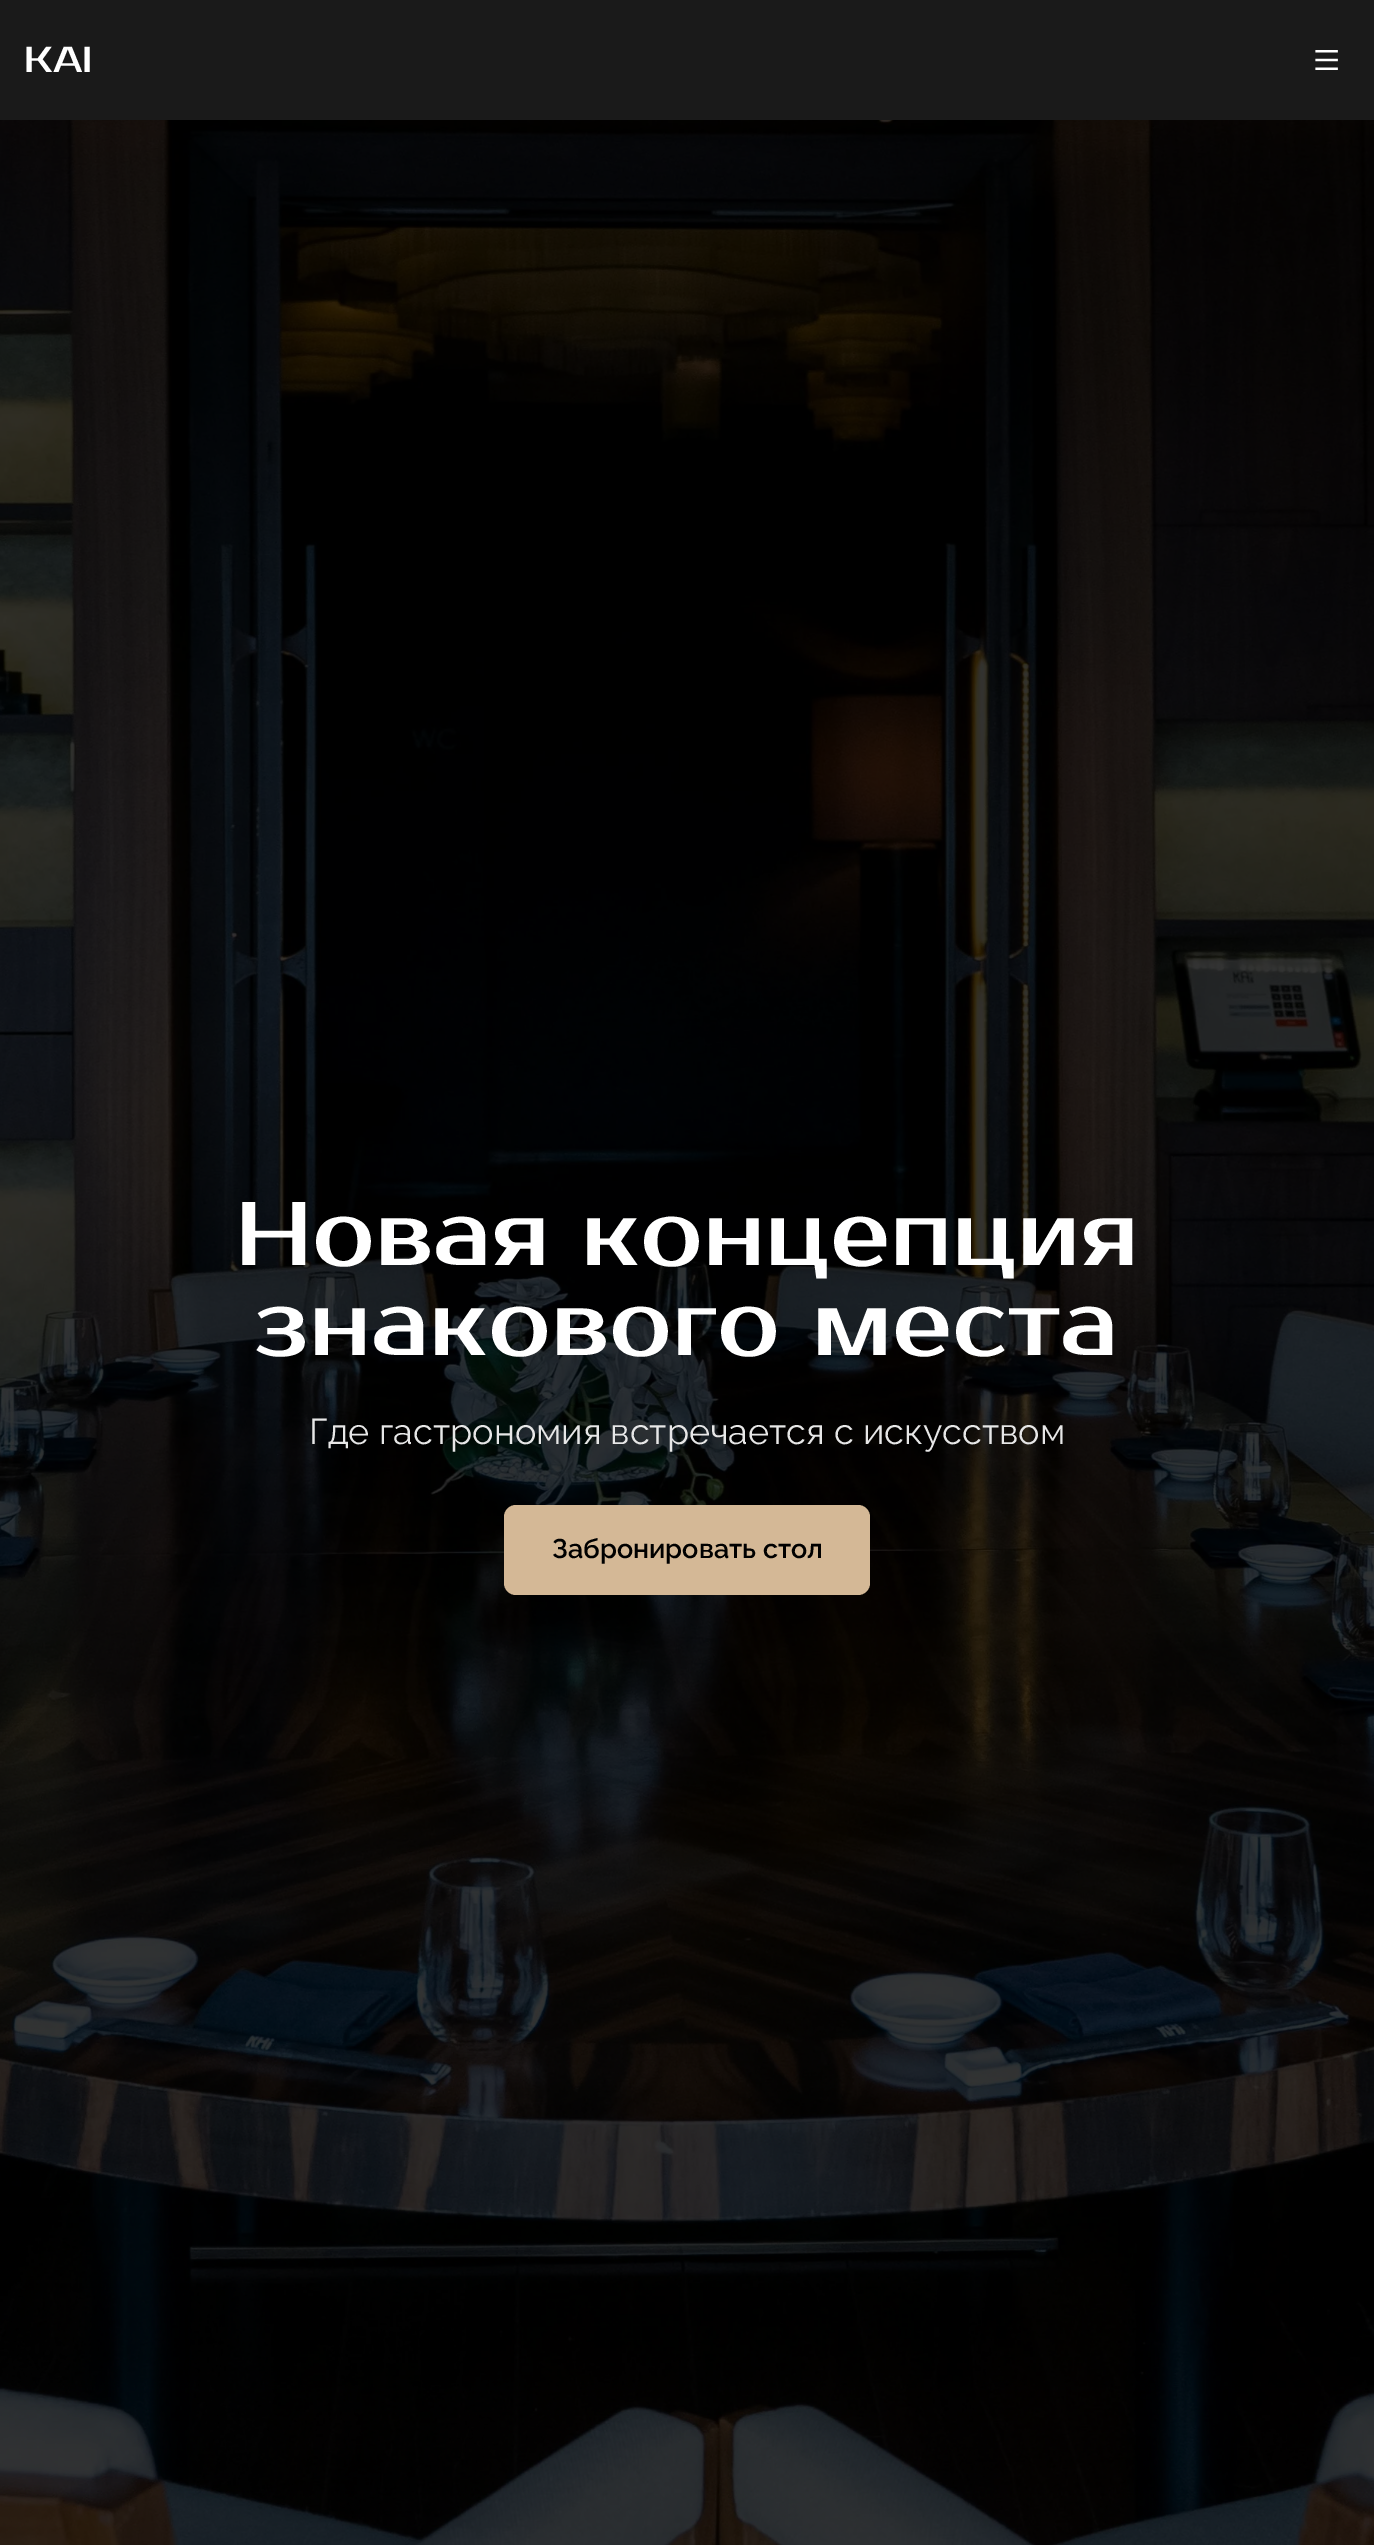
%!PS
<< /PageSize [1374 2545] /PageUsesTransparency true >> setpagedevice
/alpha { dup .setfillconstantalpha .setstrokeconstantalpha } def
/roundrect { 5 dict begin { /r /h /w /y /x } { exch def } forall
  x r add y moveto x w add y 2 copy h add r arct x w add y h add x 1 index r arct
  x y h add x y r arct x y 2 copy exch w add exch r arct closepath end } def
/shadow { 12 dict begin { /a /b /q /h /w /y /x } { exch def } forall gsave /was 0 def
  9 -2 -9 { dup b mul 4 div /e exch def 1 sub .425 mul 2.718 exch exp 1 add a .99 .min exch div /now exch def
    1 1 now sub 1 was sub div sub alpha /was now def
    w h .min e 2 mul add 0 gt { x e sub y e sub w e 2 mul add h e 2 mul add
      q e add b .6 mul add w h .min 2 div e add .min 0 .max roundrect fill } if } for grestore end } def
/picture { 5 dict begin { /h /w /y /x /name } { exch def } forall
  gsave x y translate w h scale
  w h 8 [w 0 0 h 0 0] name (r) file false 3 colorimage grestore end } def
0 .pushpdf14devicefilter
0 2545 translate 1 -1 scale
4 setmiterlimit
1 setgray
0 0 1374 2545 rectfill
(img2.rgb) 0 120 1374 2425 picture
0 setgray
3 6 1368 114 0 3 0.1 shadow
2 8 1371 117 0 4.5 0.1 shadow
0.102 setgray
0 0 1374 120 rectfill
/ProstoOne-Regular [36 0 0 -36 0 0] selectfont
1 setgray
24 72 moveto (KAI) show
(img1.rgb) 1315 50 23 20 picture
/ProstoOne-Regular [90 0 0 -90 0 0] selectfont
236 1265 moveto (Новая концепция) show
255 1355 moveto (знакового места) show
/Raleway-Regular [36 0 0 -36 0 0] selectfont
0.906 setgray
309 1444 moveto (Где гастрономия встречается с искусством) show
0.831 0.722 0.588 setrgbcolor
504 1505 366 90 12 roundrect fill
/Raleway-SemiBold [27 0 0 -27 0 0] selectfont
0 setgray
552 1558 moveto (Забронировать стол) show
.poppdf14devicefilter showpage
